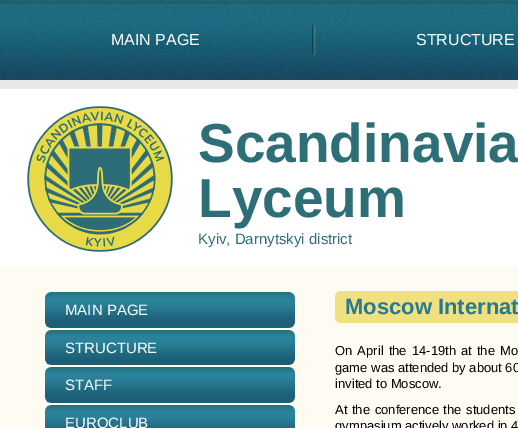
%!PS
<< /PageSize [518 428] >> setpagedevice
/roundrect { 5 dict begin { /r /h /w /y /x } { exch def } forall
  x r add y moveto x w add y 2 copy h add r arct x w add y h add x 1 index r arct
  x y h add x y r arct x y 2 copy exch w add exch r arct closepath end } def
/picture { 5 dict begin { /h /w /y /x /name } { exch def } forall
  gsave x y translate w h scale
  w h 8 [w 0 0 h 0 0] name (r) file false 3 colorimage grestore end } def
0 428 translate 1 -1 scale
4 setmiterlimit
0.996 0.988 0.949 setrgbcolor
0 0 518 428 rectfill
(img1.rgb) 0 0 518 266 picture
/LiberationSans-Regular [16 0 0 -16 0 0] selectfont
1 setgray
111 45 moveto (MAIN PAGE) show
(img2.rgb) 312 24 4 32 picture
416 45 moveto (STRUCTURE) show
(img3.rgb) 27 106 146 146 picture
/LiberationSans-Bold [55 0 0 -55 0 0] selectfont
0.176 0.431 0.467 setrgbcolor
198 162 moveto (Scandinavia) show
198 217 moveto (Lyceum) show
/LiberationSans-Regular [15 0 0 -15 0 0] selectfont
198 244 moveto (Kyiv, Darnytskyi district) show
(img4.rgb) 45 292 250 36 picture
1 setgray
65 315 moveto (MAIN PAGE) show
(img5.rgb) 45 330 250 35 picture
65 353 moveto (STRUCTURE) show
(img4.rgb) 45 367 250 36 picture
65 390 moveto (STAFF) show
(img6.rgb) 45 405 250 23 picture
65 428 moveto (EUROCLUB) show
0.941 0.878 0.502 setrgbcolor
335 291 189 32 6 roundrect fill
/LiberationSans-Bold [22 0 0 -22 0 0] selectfont
0.153 0.478 0.573 setrgbcolor
345 314 moveto (Moscow Internat) show
/LiberationSans-Regular [13 0 0 -13 0 0] selectfont
0 setgray
335 355 moveto 1.5 0 32 (On April the 14-19th at the Mo) widthshow
335 372 moveto (game was attended by about 60) show
335 388 moveto (invited to Moscow.) show
335 414 moveto 1 0 32 (At the conference the students) widthshow
335 430 moveto (gymnasium actively worked in 4) show
showpage
